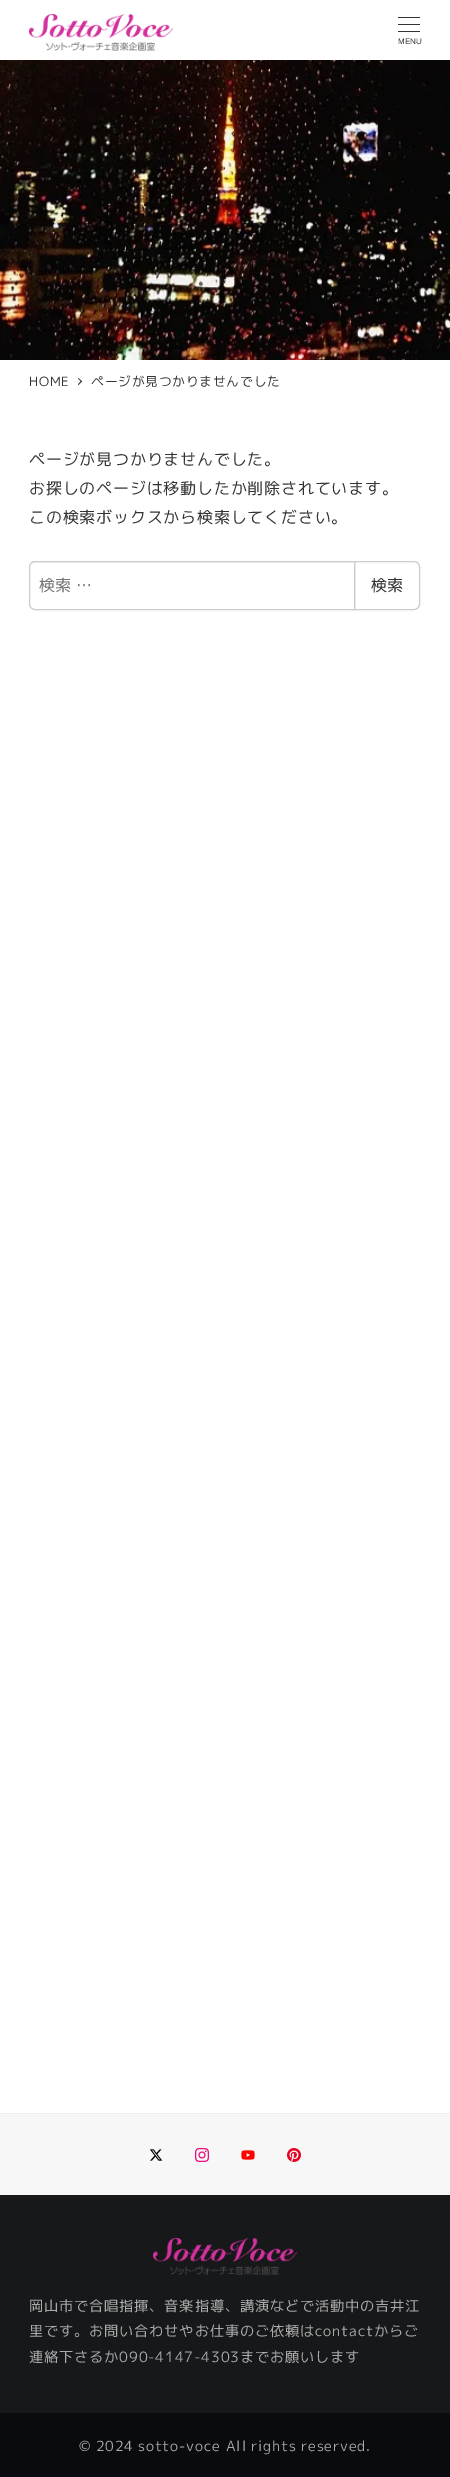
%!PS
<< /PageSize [450 2477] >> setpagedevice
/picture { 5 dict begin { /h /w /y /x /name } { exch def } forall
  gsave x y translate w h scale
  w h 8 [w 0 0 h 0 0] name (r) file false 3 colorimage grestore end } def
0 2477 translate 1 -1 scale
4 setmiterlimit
1 setgray
0 0 450 2477 rectfill
(img1.rgb) 29 14 144 37 picture
0.2 setgray
398 17 22 1 rectfill
398 24 22 1 rectfill
398 31 22 1 rectfill
/LiberationSans-Regular [8 0 0 -8 0 0] selectfont
398 44 moveto (MENU) show
(img2.rgb) 0 60 450 300 picture
/MPLUS1p-Regular [12.75 0 0 -12.75 0 0] selectfont
29 386 moveto 0.8 0 (HOME) ashow
newpath 78.5 378 moveto 82 381.5 lineto 81.5 382 lineto 78 378.5 lineto closepath fill
newpath 81.5 380.5 moveto 82 381.5 lineto 78.5 385 lineto 78 384.5 lineto closepath fill
91 386 moveto 0.8 0 (ページが見つかりませんでした) ashow
/MPLUS1p-Regular [16 0 0 -16 0 0] selectfont
29 465 moveto 0.8 0 (ページが見つかりませんでした。) ashow
29 494 moveto 0.8 0 (お探しのページは移動したか削除されています。) ashow
29 523 moveto 0.8 0 (この検索ボックスから検索してください。) ashow
0.8 setgray
newpath 354.5 561.5 moveto 414 561.5 lineto 417 561.5 419.5 564 419.5 567 curveto 419.5 604 lineto 419.5 607 417 609.5 414 609.5 curveto 354.5 609.5 lineto closepath stroke
1 setgray
newpath 35 561 moveto 355 561 lineto 355 610 lineto 35 610 lineto 31.5 610 29 607.5 29 604 curveto 29 567 lineto 29 563.5 31.5 561 35 561 curveto closepath fill
0.965 setgray
newpath 35 563 moveto 354 563 lineto 354 562 lineto 35 562 lineto 32 562 30 565 30 568 curveto 30 565 32 563 35 563 curveto closepath fill
0.8 setgray
newpath 35 561.5 moveto 354.5 561.5 lineto 354.5 609.5 lineto 35 609.5 lineto 32 609.5 29.5 607 29.5 604 curveto 29.5 567 lineto 29.5 564 32 561.5 35 561.5 curveto closepath stroke
0.459 setgray
39 591 moveto (検索) show
76 591 moveto (…) show
0.2 setgray
371 591 moveto (検索) show
0.09 0.094 0.102 setrgbcolor
0 2195 450 218 rectfill
0.933 setgray
0 2113 450 1 rectfill
0.969 setgray
0 2114 450 81 rectfill
(img3.rgb) 149 2149 14 12 picture
(img4.rgb) 195 2148 14 14 picture
(img5.rgb) 241 2150 14 10 picture
(img6.rgb) 287 2148 14 14 picture
(img7.rgb) 153 2238 144 37 picture
/MPLUS1p-Regular [14.25 0 0 -14.25 0 0] selectfont
0.667 setgray
29 2311 moveto 0.8 0 (岡山市で合唱指揮、音楽指導、講演などで活動中の吉井江) ashow
29 2336 moveto 0.8 0 (里です。お問い合わせやお仕事のご依頼はcontactからご) ashow
29 2362 moveto 0.8 0 (連絡下さるか090-4147-4303までお願いします) ashow
0.039 0.043 0.059 setrgbcolor
0 2413 450 64 rectfill
/MPLUS1p-Regular [14 0 0 -14 0 0] selectfont
0.667 setgray
79 2451 moveto 0.8 0 (©) ashow
96 2451 moveto 0.8 0 (2024) ashow
138 2451 moveto 0.8 0 (sotto-voce) ashow
226 2451 moveto 0.8 0 (All) ashow
251 2451 moveto 0.8 0 (rights) ashow
301 2451 moveto 0.8 0 (reserved.) ashow
showpage
